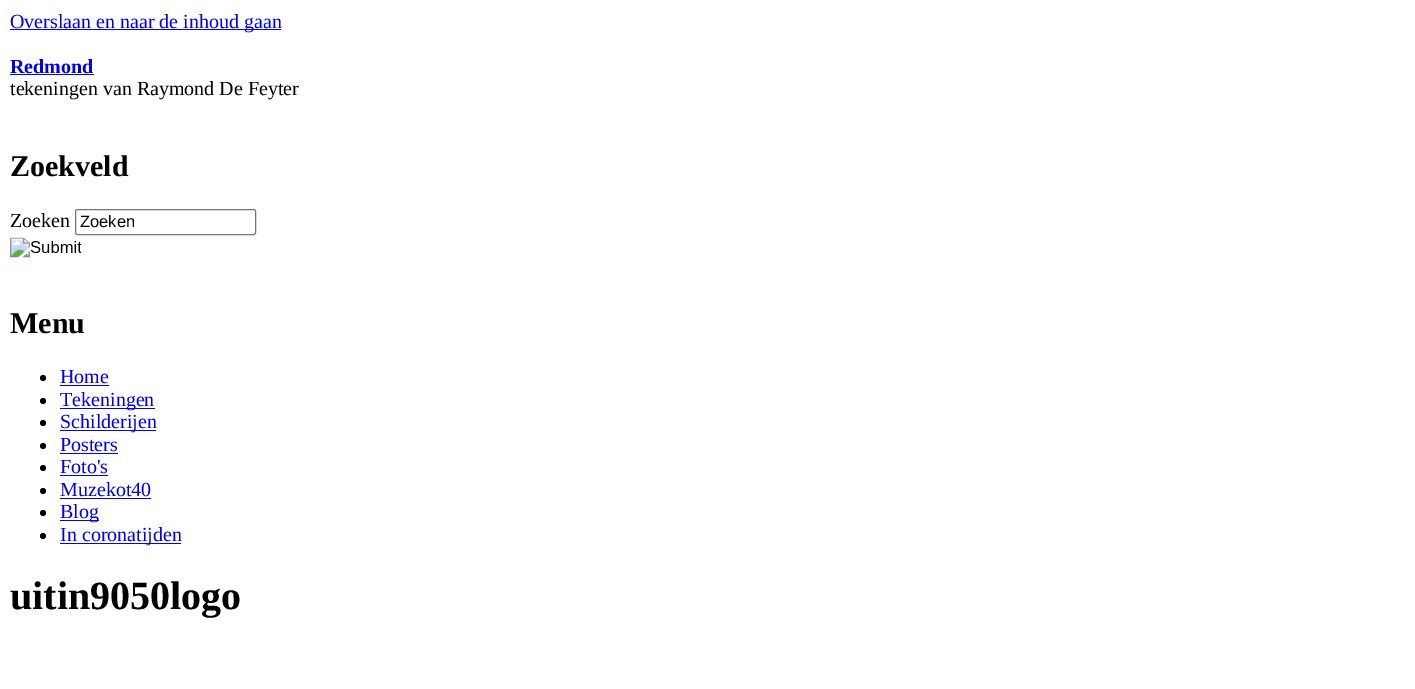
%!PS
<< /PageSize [1415 689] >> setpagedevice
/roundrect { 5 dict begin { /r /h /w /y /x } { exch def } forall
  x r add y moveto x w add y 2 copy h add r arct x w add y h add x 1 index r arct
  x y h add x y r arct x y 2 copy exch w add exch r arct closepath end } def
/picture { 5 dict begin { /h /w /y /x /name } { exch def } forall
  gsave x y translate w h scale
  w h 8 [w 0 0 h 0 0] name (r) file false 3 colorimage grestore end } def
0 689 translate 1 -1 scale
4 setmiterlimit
1 setgray
0 0 1415 689 rectfill
0 0 0.933 setrgbcolor
10 29 271 1 rectfill
/LiberationSerif-Regular [20 0 0 -20 0 0] selectfont
10 28 moveto (Overslaan en naar de inhoud gaan) show
/LiberationSerif-Bold [20 0 0 -20 0 0] selectfont
10 73 moveto (Redmond) show
10 74 84 1 rectfill
/LiberationSerif-Regular [20 0 0 -20 0 0] selectfont
0 setgray
10 95 moveto (tekeningen van Raymond De Feyter) show
/LiberationSerif-Bold [30 0 0 -30 0 0] selectfont
10 176 moveto (Zoekveld) show
/LiberationSerif-Regular [20 0 0 -20 0 0] selectfont
10 227 moveto (Zoeken) show
0.463 setgray
75.5 209.5 180 25 2 roundrect stroke
/LiberationSans-Regular [16.5 0 0 -16.5 0 0] selectfont
0 setgray
80 227 moveto (Zoeken) show
(img1.rgb) 10 237 72 21 picture
/LiberationSerif-Bold [30 0 0 -30 0 0] selectfont
10 333 moveto (Menu) show
newpath 43 378 3 0 360 arc closepath fill
/LiberationSerif-Regular [20 0 0 -20 0 0] selectfont
0 0 0.933 setrgbcolor
60 383 moveto (Home) show
60 385 49 1 rectfill
0 setgray
newpath 43 401 3 0 360 arc closepath fill
0 0 0.933 setrgbcolor
60 408 95 1 rectfill
60 406 moveto (Tekeningen) show
0 setgray
newpath 43 423 3 0 360 arc closepath fill
0 0 0.933 setrgbcolor
60 430 96 1 rectfill
60 428 moveto (Schilderijen) show
0 setgray
newpath 43 446 3 0 360 arc closepath fill
0 0 0.933 setrgbcolor
60 451 moveto (Posters) show
60 453 58 1 rectfill
0 setgray
newpath 43 468 3 0 360 arc closepath fill
0 0 0.933 setrgbcolor
60 473 moveto (Foto's) show
60 475 48 1 rectfill
0 setgray
newpath 43 491 3 0 360 arc closepath fill
0 0 0.933 setrgbcolor
60 496 moveto (Muzekot40) show
60 498 91 1 rectfill
0 setgray
newpath 43 513 3 0 360 arc closepath fill
0 0 0.933 setrgbcolor
60 520 39 1 rectfill
60 518 moveto (Blog) show
0 setgray
newpath 43 536 3 0 360 arc closepath fill
0 0 0.933 setrgbcolor
60 543 121 1 rectfill
60 541 moveto (In coronatijden) show
/LiberationSerif-Bold [40 0 0 -40 0 0] selectfont
0 setgray
10 609 moveto (uitin9050logo) show
showpage
